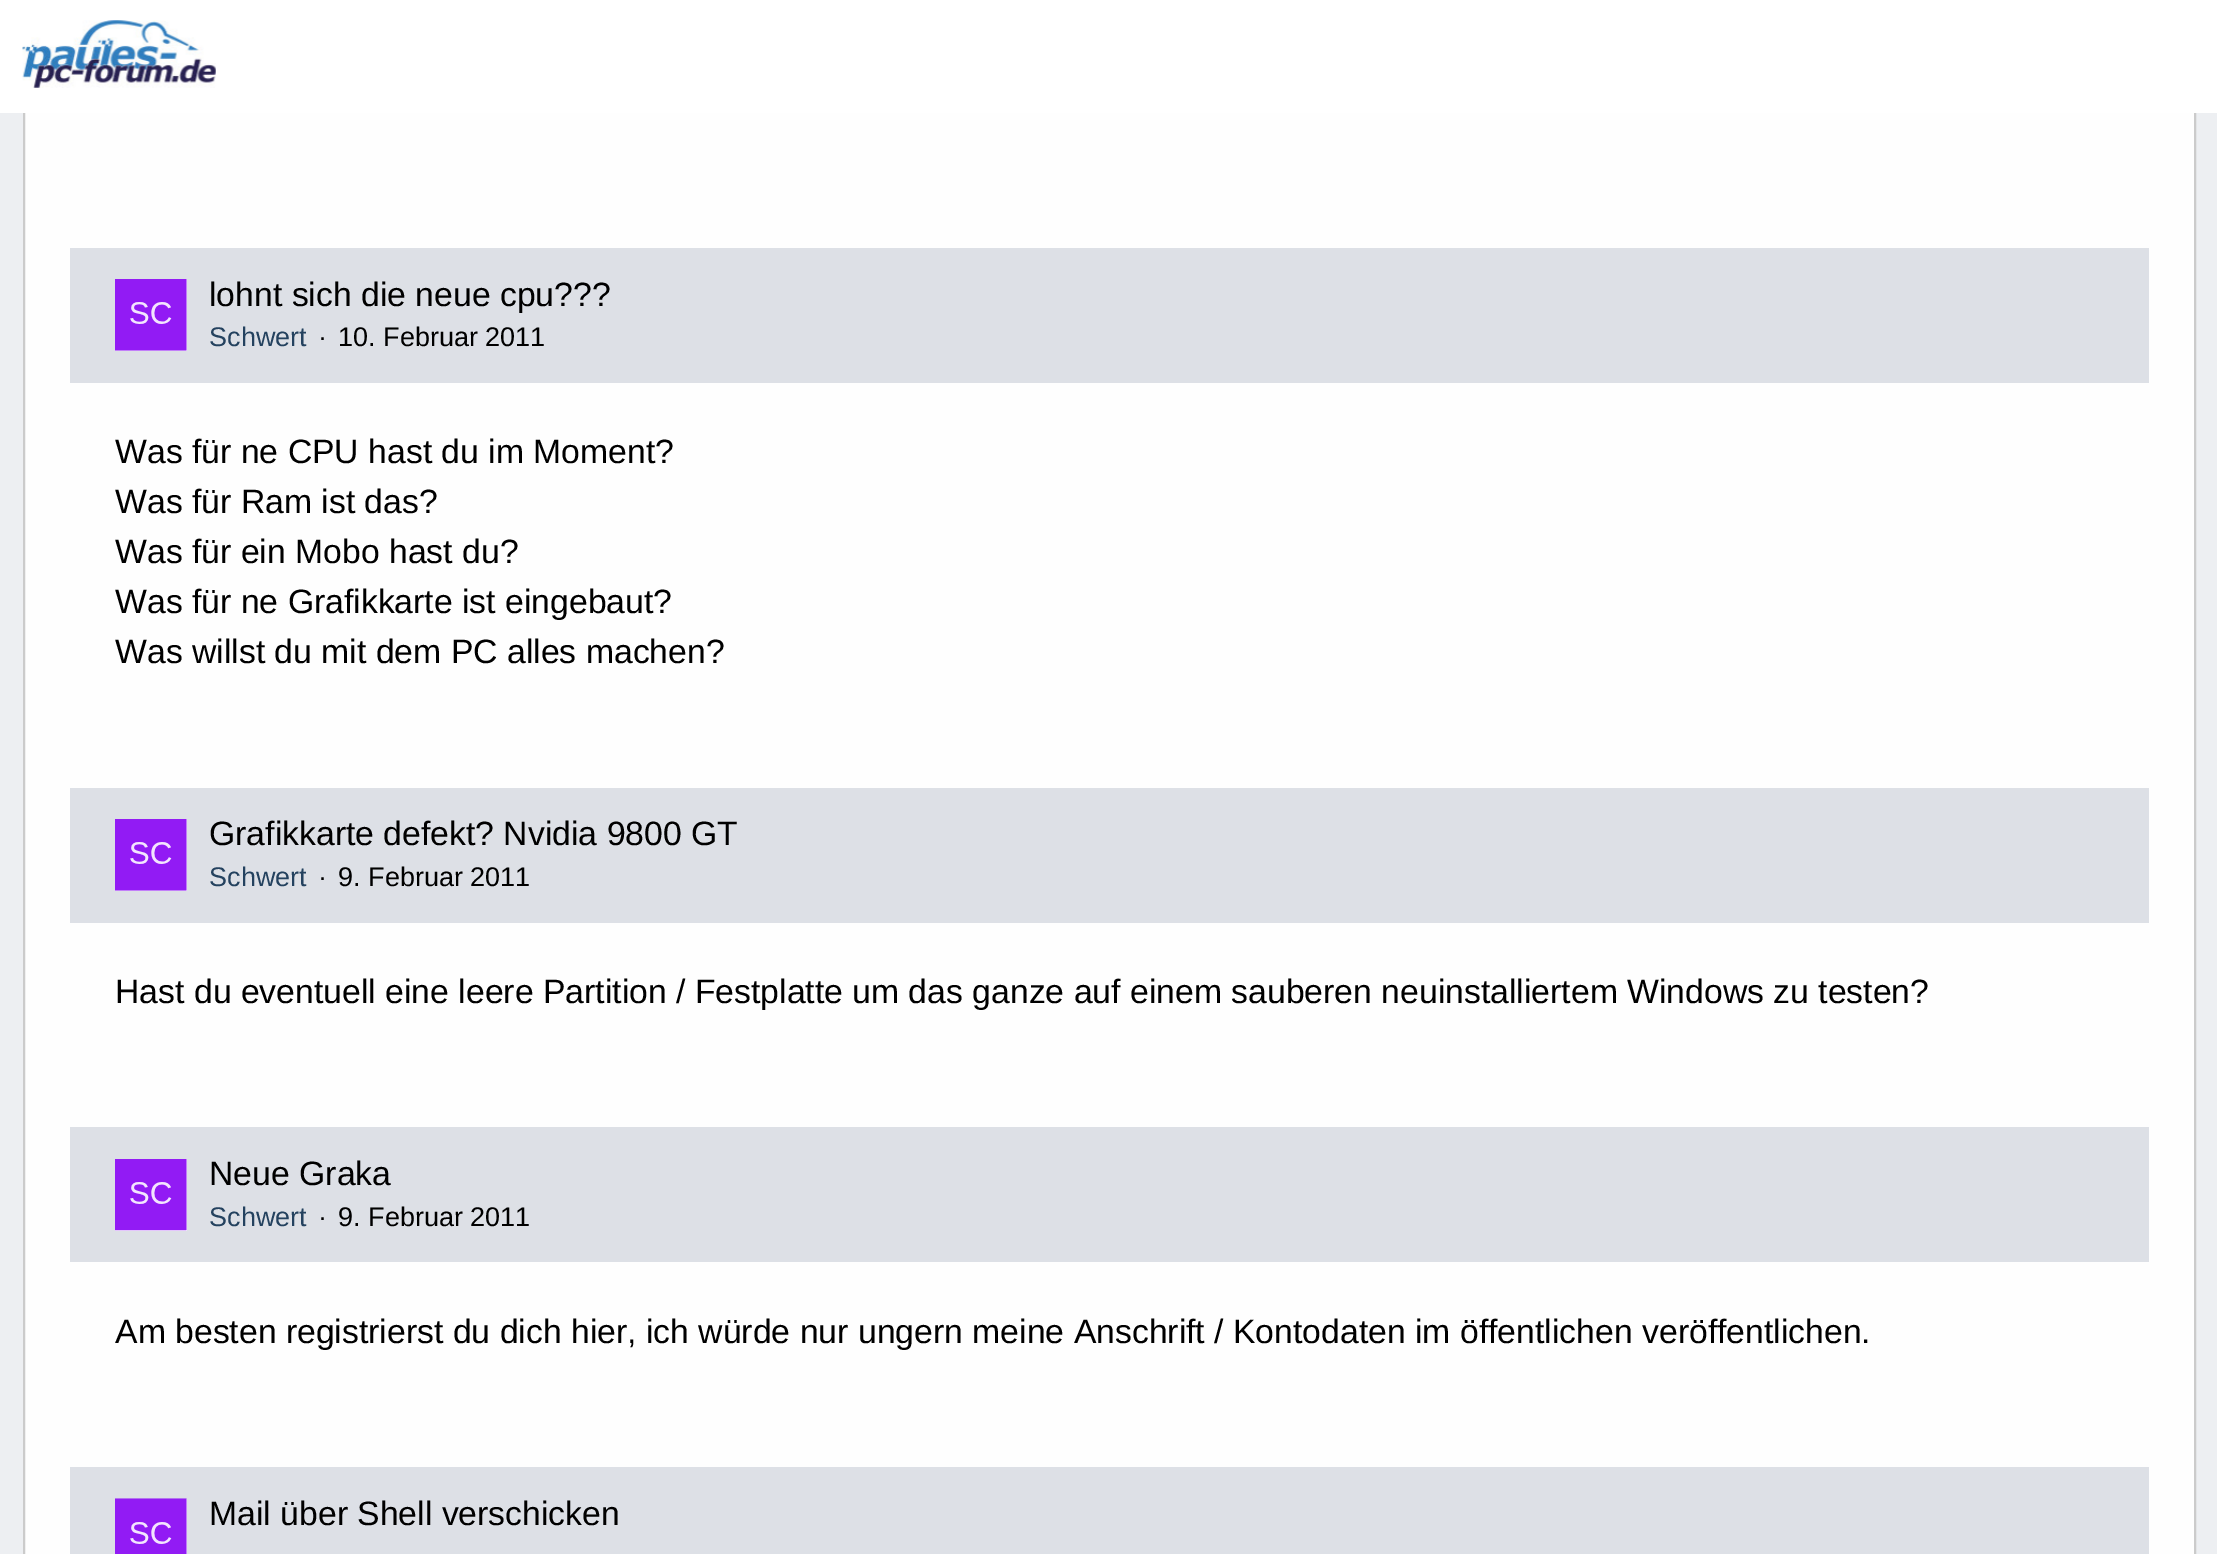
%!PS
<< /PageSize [2217 1554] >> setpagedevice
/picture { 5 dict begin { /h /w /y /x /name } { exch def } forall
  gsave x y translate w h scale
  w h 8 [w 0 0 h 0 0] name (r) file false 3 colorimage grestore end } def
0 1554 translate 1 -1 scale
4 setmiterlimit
0.929 0.937 0.949 setrgbcolor
0 0 2217 1554 rectfill
0.996 setgray
25 113 2169 1441 rectfill
0.796 setgray
2 setlinewidth
24 -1 2171 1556 rectstroke
1 setgray
0 0 2217 113 rectfill
(img1.rgb) 22 20 194 68 picture
0.867 0.878 0.902 setrgbcolor
70 248 2079 135 rectfill
1 setgray
115 279 72 72 rectfill
(img2.rgb) 115 279 72 72 picture
/LiberationSans-Regular [33.75 0 0 -33.75 0 0] selectfont
0 setgray
209 306 moveto (lohnt sich die neue cpu???) show
/LiberationSans-Regular [27 0 0 -27 0 0] selectfont
0.141 0.259 0.373 setrgbcolor
209 346 moveto (Schwert) show
0 setgray
318 346 moveto (·) show
338 346 moveto (10. Februar 2011) show
/LiberationSans-Regular [33.75 0 0 -33.75 0 0] selectfont
115 463 moveto (Was für ne CPU hast du im Moment?) show
115 513 moveto (Was für Ram ist das?) show
115 563 moveto (Was für ein Mobo hast du?) show
115 613 moveto (Was für ne Grafikkarte ist eingebaut?) show
115 663 moveto (Was willst du mit dem PC alles machen?) show
0.867 0.878 0.902 setrgbcolor
70 788 2079 135 rectfill
1 setgray
115 819 72 72 rectfill
(img2.rgb) 115 819 72 72 picture
0 setgray
209 845 moveto (Grafikkarte defekt? Nvidia 9800 GT) show
/LiberationSans-Regular [27 0 0 -27 0 0] selectfont
0.141 0.259 0.373 setrgbcolor
209 886 moveto (Schwert) show
0 setgray
318 886 moveto (·) show
338 886 moveto (9. Februar 2011) show
/LiberationSans-Regular [33.75 0 0 -33.75 0 0] selectfont
115 1003 moveto (Hast du eventuell eine leere Partition / Festplatte um das ganze auf einem sauberen neuinstalliertem Windows zu testen?) show
0.867 0.878 0.902 setrgbcolor
70 1127 2079 135 rectfill
1 setgray
115 1159 72 72 rectfill
(img3.rgb) 115 1159 72 72 picture
0 setgray
209 1185 moveto (Neue Graka) show
/LiberationSans-Regular [27 0 0 -27 0 0] selectfont
0.141 0.259 0.373 setrgbcolor
209 1226 moveto (Schwert) show
0 setgray
318 1226 moveto (·) show
338 1226 moveto (9. Februar 2011) show
/LiberationSans-Regular [33.75 0 0 -33.75 0 0] selectfont
115 1343 moveto (Am besten registrierst du dich hier, ich würde nur ungern meine Anschrift / Kontodaten im öffentlichen veröffentlichen.) show
0.867 0.878 0.902 setrgbcolor
70 1467 2079 87 rectfill
1 setgray
186 1499 1 55 rectfill
(img4.rgb) 115 1498 72 56 picture
0 setgray
209 1525 moveto (Mail über Shell verschicken) show
showpage
